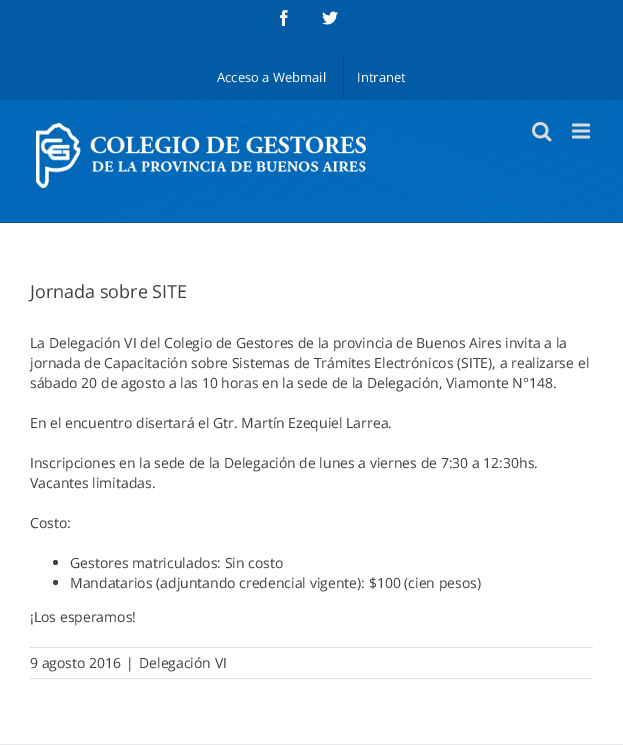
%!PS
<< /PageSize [623 745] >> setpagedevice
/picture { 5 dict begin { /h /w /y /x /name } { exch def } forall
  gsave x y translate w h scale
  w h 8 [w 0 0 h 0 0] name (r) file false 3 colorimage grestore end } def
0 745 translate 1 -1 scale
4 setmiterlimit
1 setgray
0 0 623 745 rectfill
0.004 0.361 0.647 setrgbcolor
0 0 623 100 rectfill
(img1.rgb) 280 10 8 16 picture
(img2.rgb) 322 11 16 14 picture
/OpenSans-Regular [13 0 0 -13 0 0] selectfont
1 setgray
217 82 moveto (Acceso a Webmail) show
0 0.294 0.533 setrgbcolor
343 55 1 44 rectfill
1 setgray
357 82 moveto (Intranet) show
(img3.rgb) 0 100 623 122 picture
0.004 0.361 0.647 setrgbcolor
0 222 623 1 rectfill
(img4.rgb) 36 123 330 65 picture
(img5.rgb) 532 122 20 20 picture
(img6.rgb) 572 123 18 16 picture
/OpenSans-Regular [18 0 0 -18 0 0] selectfont
0.255 setgray
30 298 moveto (Jornada sobre SITE) show
/OpenSans-Regular [14 0 0 -14 0 0] selectfont
30 348 moveto (La Delegación VI del Colegio de Gestores de la provincia de Buenos Aires invita a la) show
30 368 moveto (jornada de Capacitación sobre Sistemas de Trámites Electrónicos \(SITE\), a realizarse el) show
30 388 moveto (sábado 20 de agosto a las 10 horas en la sede de la Delegación, Viamonte N°148.) show
30 428 moveto (En el encuentro disertará el Gtr. Martín Ezequiel Larrea.) show
30 468 moveto (Inscripciones en la sede de la Delegación de lunes a viernes de 7:30 a 12:30hs.) show
30 488 moveto (Vacantes limitadas.) show
30 528 moveto (Costo:) show
newpath 55.5 562.5 2.5 0 360 arc closepath fill
70 568 moveto (Gestores matriculados: Sin costo) show
newpath 55.5 582.5 2.5 0 360 arc closepath fill
70 588 moveto (Mandatarios \(adjuntando credencial vigente\): $100 \(cien pesos\)) show
30 622 moveto (¡Los esperamos!) show
0.878 0.871 0.871 setrgbcolor
30 647 563 1 rectfill
30 678 563 1 rectfill
0.255 setgray
30 668 moveto (9 agosto 2016) show
126 668 moveto (|) show
139 668 moveto (Delegación VI) show
0.914 0.918 0.933 setrgbcolor
0 744 623 1 rectfill
showpage
